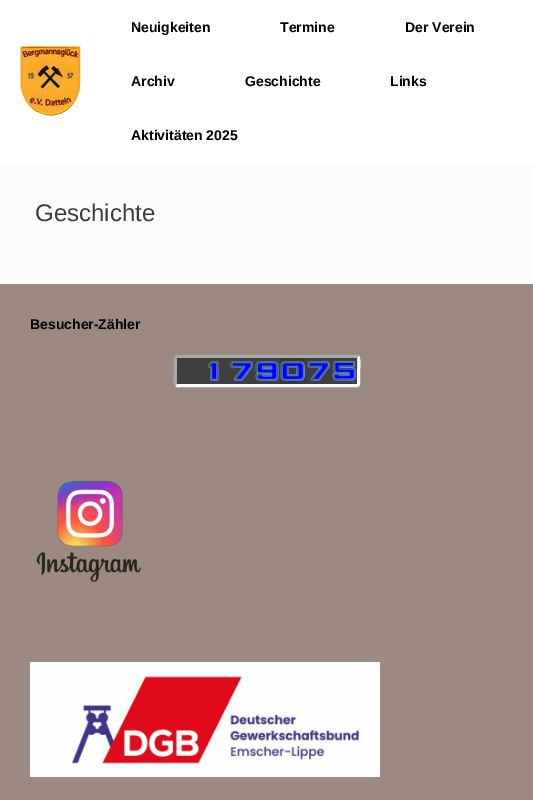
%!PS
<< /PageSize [533 800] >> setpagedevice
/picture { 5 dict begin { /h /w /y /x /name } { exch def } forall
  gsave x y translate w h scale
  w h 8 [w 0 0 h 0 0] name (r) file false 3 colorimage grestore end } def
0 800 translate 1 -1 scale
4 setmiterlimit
0.608 0.537 0.51 setrgbcolor
0 0 533 800 rectfill
1 setgray
0 0 533 162 rectfill
(img1.rgb) 20 46 61 70 picture
/LiberationSans-Bold [14 0 0 -14 0 0] selectfont
0 setgray
131 32 moveto (Neuigkeiten) show
280 32 moveto (Termine) show
405 32 moveto (Der Verein) show
131 86 moveto (Archiv) show
245 86 moveto (Geschichte) show
390 86 moveto (Links) show
131 140 moveto (Aktivitäten 2025) show
0.988 setgray
0 162 533 122 rectfill
/LiberationSans-Regular [24 0 0 -24 0 0] selectfont
0.231 setgray
35 221 moveto (Geschichte) show
/LiberationSans-Bold [14 0 0 -14 0 0] selectfont
0 setgray
30 329 moveto (Besucher-Zähler) show
1 setgray
3 setlinewidth
newpath 358 357 moveto 359.5 358 358.5 372.5 358.5 375.5 curveto 358.5 379.5 lineto 358.5 380 359.5 385.5 357 385.5 curveto 177 385.5 lineto 176 385 lineto stroke
0.667 setgray
newpath 176 385 moveto 174.5 384 175.5 369.5 175.5 366.5 curveto 175.5 362.5 lineto 175.5 362 174.5 356.5 177 356.5 curveto 357 356.5 lineto 358 357 lineto stroke
(img2.rgb) 177 358 180 26 picture
(img3.rgb) 36 481 105 101 picture
(img4.rgb) 30 662 350 115 picture
showpage
